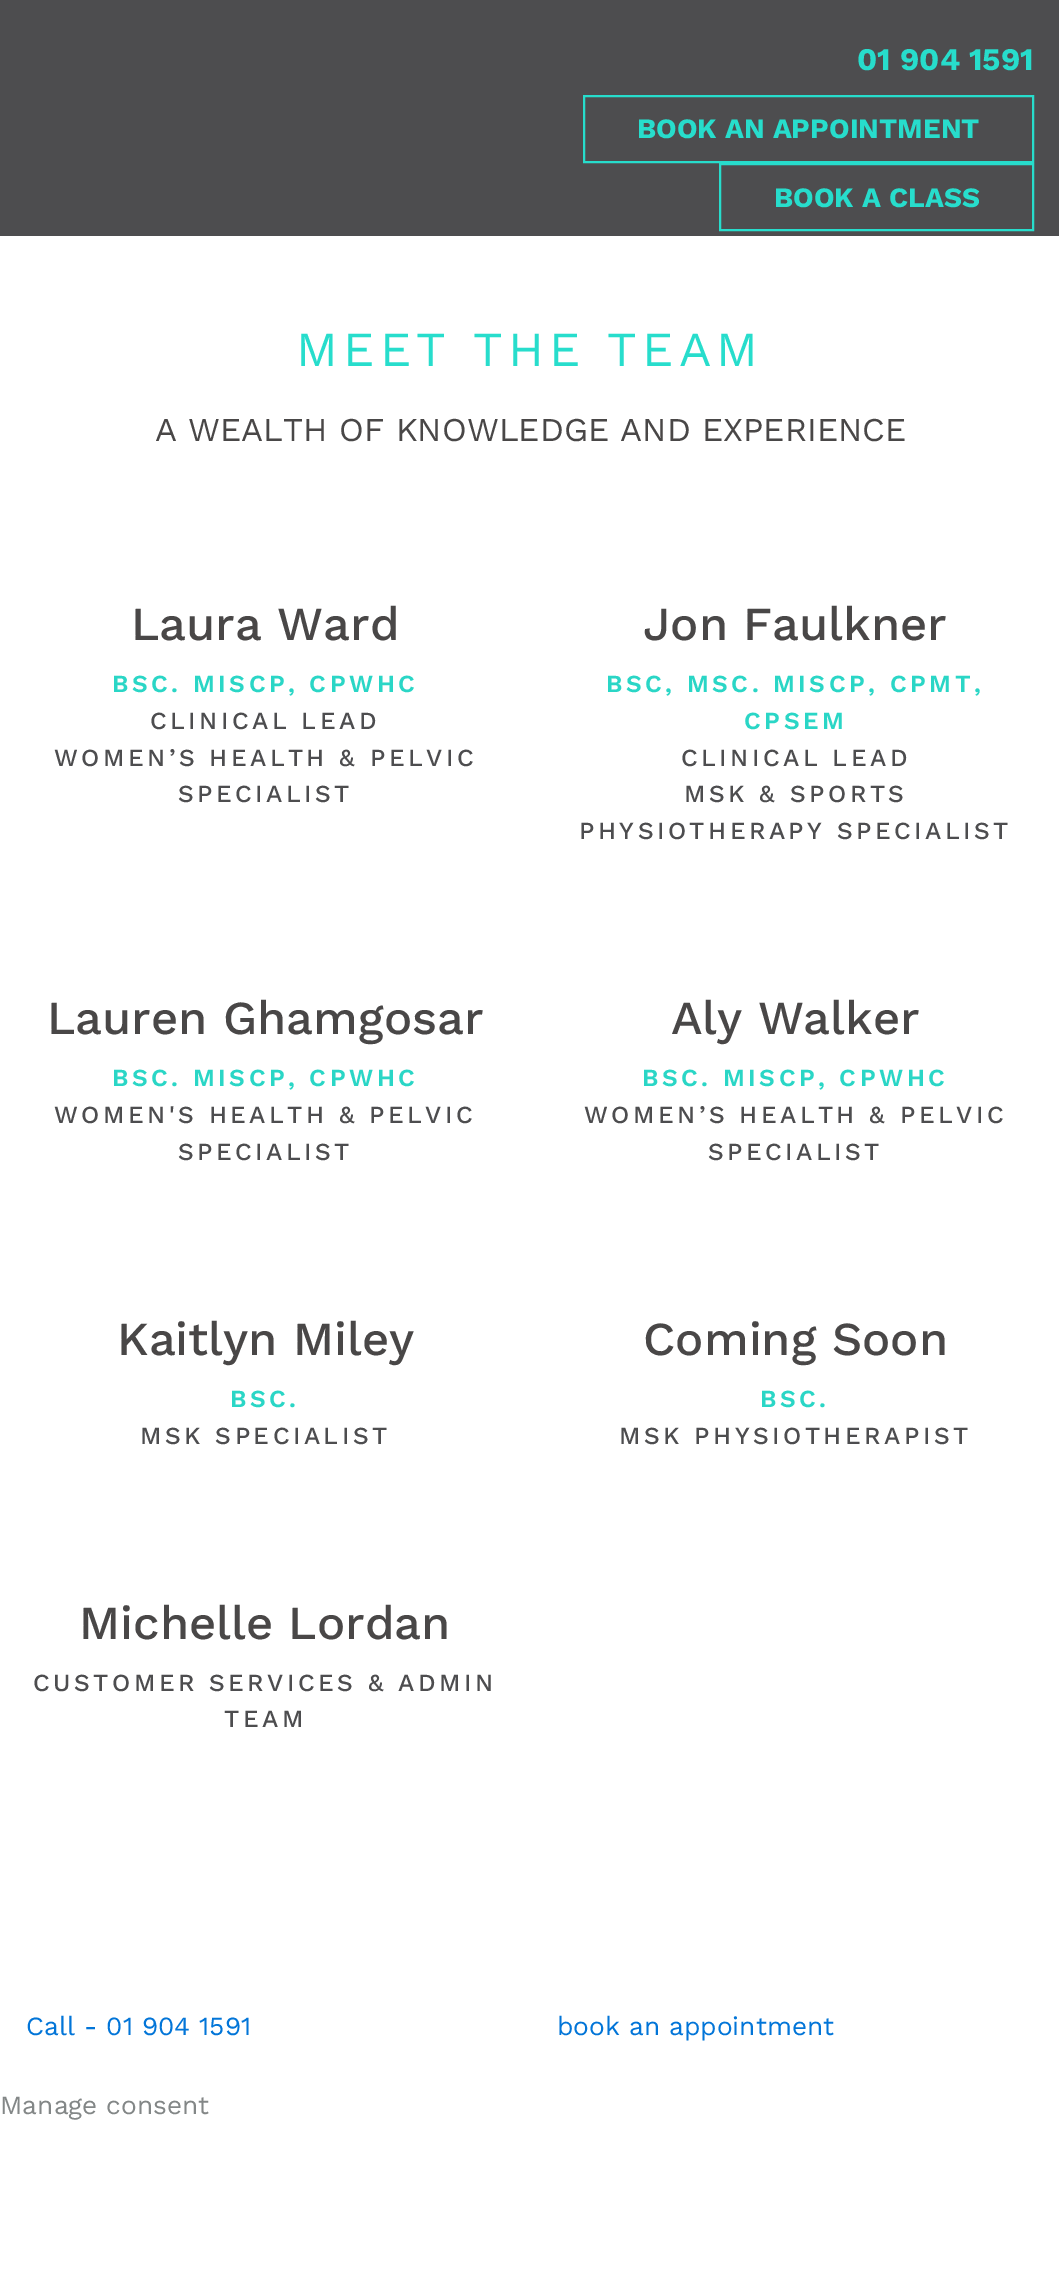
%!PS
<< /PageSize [1059 2293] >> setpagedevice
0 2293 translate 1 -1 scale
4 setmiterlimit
1 setgray
0 0 1059 2293 rectfill
0.302 0.302 0.31 setrgbcolor
0 0 1059 236 rectfill
/WorkSans-Bold [31.5 0 0 -31.5 0 0] selectfont
0.153 0.867 0.8 setrgbcolor
857 70 moveto (01 904 1591) show
2 setlinewidth
584 96 449 66 rectstroke
/WorkSans-Bold [28 0 0 -28 0 0] selectfont
637 138 moveto (BOOK AN APPOINTMENT) show
720 164 313 66 rectstroke
774 207 moveto (BOOK A CLASS) show
/WorkSans-Regular [49 0 0 -49 0 0] selectfont
296 366 moveto 5.25 0 (MEET THE TEAM) ashow
/WorkSans-Regular [33.25 0 0 -33.25 0 0] selectfont
0.286 0.278 0.278 setrgbcolor
155 441 moveto (A WEALTH OF KNOWLEDGE AND EXPERIENCE) show
/WorkSans-Medium [47.25 0 0 -47.25 0 0] selectfont
131 640 moveto (Laura Ward) show
/WorkSans-SemiBold [24.5 0 0 -24.5 0 0] selectfont
0.165 0.839 0.776 setrgbcolor
112 692 moveto 3.5 0 (BSC. MISCP, CPWHC) ashow
/WorkSans-Medium [24.5 0 0 -24.5 0 0] selectfont
0.302 0.302 0.31 setrgbcolor
150 729 moveto 3.5 0 (CLINICAL LEAD) ashow
54 766 moveto 3.5 0 (WOMEN’S HEALTH & PELVIC) ashow
178 802 moveto 3.5 0 (SPECIALIST) ashow
/WorkSans-Medium [47.25 0 0 -47.25 0 0] selectfont
0.286 0.278 0.278 setrgbcolor
643 640 moveto (Jon Faulkner) show
/WorkSans-SemiBold [24.5 0 0 -24.5 0 0] selectfont
0.165 0.839 0.776 setrgbcolor
606 692 moveto 3.5 0 (BSC, MSC. MISCP, CPMT,) ashow
744 729 moveto 3.5 0 (CPSEM) ashow
/WorkSans-Medium [24.5 0 0 -24.5 0 0] selectfont
0.302 0.302 0.31 setrgbcolor
681 766 moveto 3.5 0 (CLINICAL LEAD) ashow
684 802 moveto 3.5 0 (MSK & SPORTS) ashow
579 839 moveto 3.5 0 (PHYSIOTHERAPY SPECIALIST) ashow
/WorkSans-Medium [47.25 0 0 -47.25 0 0] selectfont
0.286 0.278 0.278 setrgbcolor
47 1034 moveto (Lauren Ghamgosar) show
/WorkSans-SemiBold [24.5 0 0 -24.5 0 0] selectfont
0.165 0.839 0.776 setrgbcolor
112 1086 moveto 3.5 0 (BSC. MISCP, CPWHC) ashow
/WorkSans-Medium [24.5 0 0 -24.5 0 0] selectfont
0.302 0.302 0.31 setrgbcolor
54 1123 moveto 3.5 0 (WOMEN'S HEALTH & PELVIC) ashow
178 1160 moveto 3.5 0 (SPECIALIST) ashow
/WorkSans-Medium [47.25 0 0 -47.25 0 0] selectfont
0.286 0.278 0.278 setrgbcolor
671 1034 moveto (Aly Walker) show
/WorkSans-SemiBold [24.5 0 0 -24.5 0 0] selectfont
0.165 0.839 0.776 setrgbcolor
642 1086 moveto 3.5 0 (BSC. MISCP, CPWHC) ashow
/WorkSans-Medium [24.5 0 0 -24.5 0 0] selectfont
0.302 0.302 0.31 setrgbcolor
584 1123 moveto 3.5 0 (WOMEN’S HEALTH & PELVIC) ashow
708 1160 moveto 3.5 0 (SPECIALIST) ashow
/WorkSans-Medium [47.25 0 0 -47.25 0 0] selectfont
0.286 0.278 0.278 setrgbcolor
117 1355 moveto (Kaitlyn Miley) show
/WorkSans-SemiBold [24.5 0 0 -24.5 0 0] selectfont
0.165 0.839 0.776 setrgbcolor
230 1407 moveto 3.5 0 (BSC.) ashow
/WorkSans-Medium [24.5 0 0 -24.5 0 0] selectfont
0.302 0.302 0.31 setrgbcolor
140 1444 moveto 3.5 0 (MSK SPECIALIST) ashow
/WorkSans-Medium [47.25 0 0 -47.25 0 0] selectfont
0.286 0.278 0.278 setrgbcolor
643 1355 moveto (Coming Soon) show
/WorkSans-SemiBold [24.5 0 0 -24.5 0 0] selectfont
0.165 0.839 0.776 setrgbcolor
760 1407 moveto 3.5 0 (BSC.) ashow
/WorkSans-Medium [24.5 0 0 -24.5 0 0] selectfont
0.302 0.302 0.31 setrgbcolor
619 1444 moveto 3.5 0 (MSK PHYSIOTHERAPIST) ashow
/WorkSans-Medium [47.25 0 0 -47.25 0 0] selectfont
0.286 0.278 0.278 setrgbcolor
79 1639 moveto (Michelle Lordan) show
/WorkSans-Medium [24.5 0 0 -24.5 0 0] selectfont
0.302 0.302 0.31 setrgbcolor
33 1691 moveto 3.5 0 (CUSTOMER SERVICES & ADMIN) ashow
224 1727 moveto 3.5 0 (TEAM) ashow
/WorkSans-Regular [26.25 0 0 -26.25 0 0] selectfont
0.008 0.459 0.847 setrgbcolor
26 2035 moveto (Call - 01 904 1591) show
557 2035 moveto (book an appointment) show
0.514 0.529 0.529 setrgbcolor
0 2114 moveto (Manage consent) show
showpage
